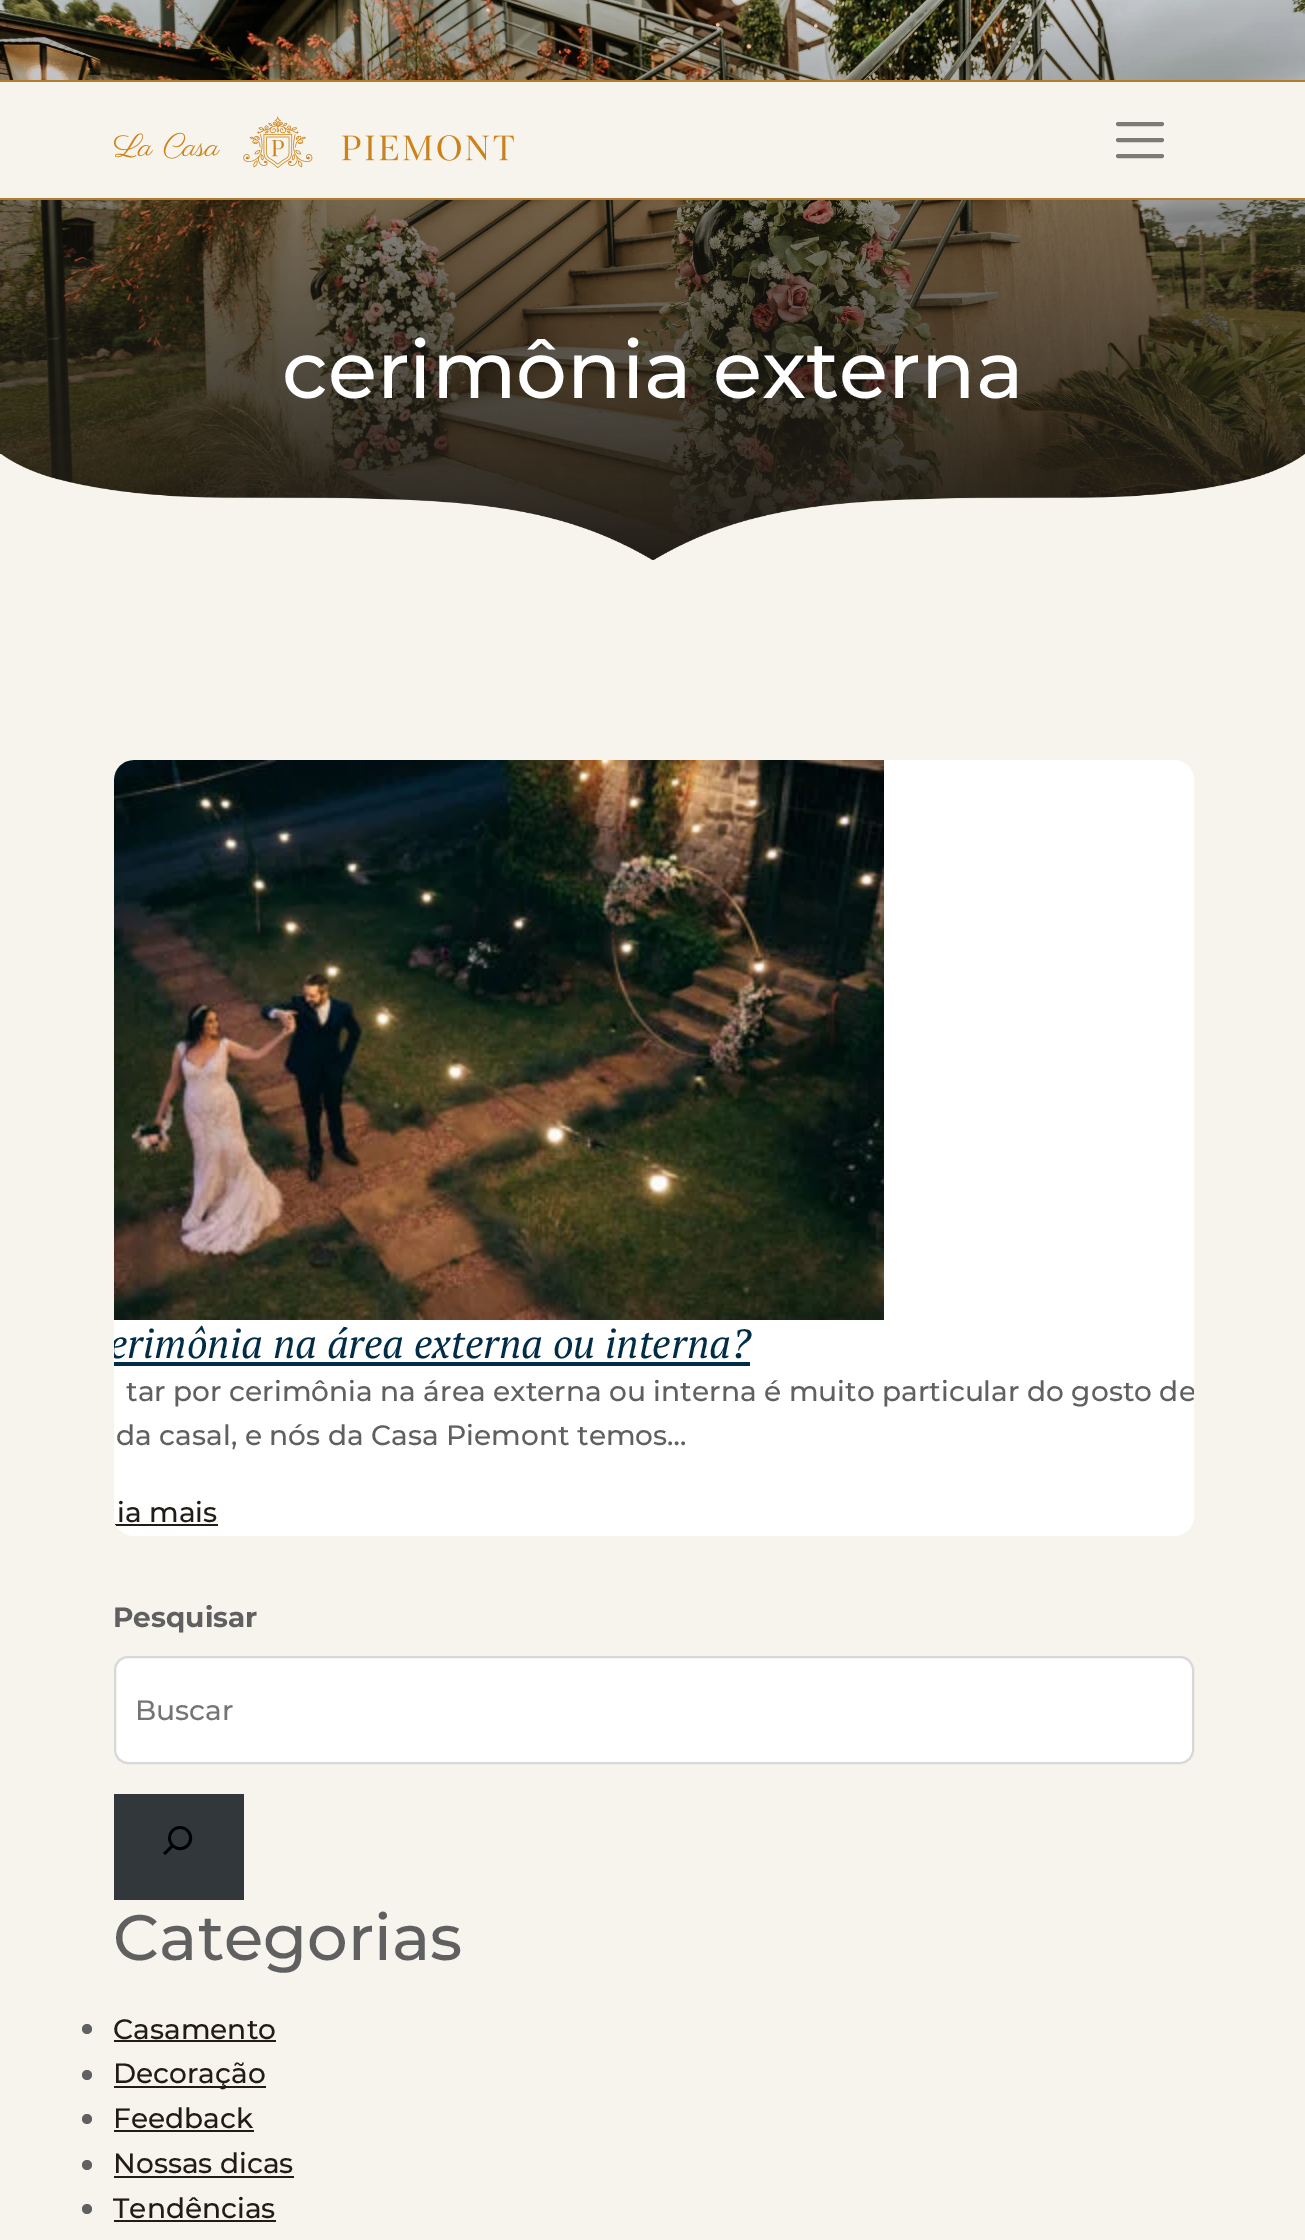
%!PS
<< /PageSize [1305 2240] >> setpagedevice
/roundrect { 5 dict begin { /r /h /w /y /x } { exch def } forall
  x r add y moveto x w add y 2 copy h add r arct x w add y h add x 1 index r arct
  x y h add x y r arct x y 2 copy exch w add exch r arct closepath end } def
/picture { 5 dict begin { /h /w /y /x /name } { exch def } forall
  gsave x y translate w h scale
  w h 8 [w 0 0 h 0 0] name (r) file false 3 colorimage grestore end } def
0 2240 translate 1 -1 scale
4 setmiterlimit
0.965 0.957 0.925 setrgbcolor
0 0 1305 2240 rectfill
(img2.rgb) 0 0 1305 560 picture
0 82 1305 116 rectfill
0.69 0.482 0.169 setrgbcolor
0 80 1305 2 rectfill
0 198 1305 2 rectfill
(img1.rgb) 114 116 400 52 picture
0.482 0.478 0.463 setrgbcolor
4 setlinewidth
1 setlinecap
newpath 1118 124 moveto 1162 124 lineto 1118 140 moveto 1162 140 lineto 1118 156 moveto 1162 156 lineto stroke
/Montserrat-Medium [80 0 0 -80 0 0] selectfont
1 setgray
282 398 moveto (cerimônia externa) show
(img3.rgb) 0 454 1305 106 picture
114 760 1080 776 20 roundrect fill
(img4.rgb) 114 760 770 560 picture
gsave
114 760 1080 776 20 roundrect clip newpath
/PTSerif-Italic [40.6 0 0 -40.6 0 0] selectfont
0 0.173 0.278 setrgbcolor
109 1358 moveto (erimônia na área externa ou interna?) show
grestore
0 0.173 0.278 setrgbcolor
114 1362 636 4 rectfill
gsave
114 760 1080 776 20 roundrect clip newpath
/Montserrat-Medium [28 0 0 -28 0 0] selectfont
0.376 setgray
126 1401 moveto (tar por cerimônia na área externa ou interna é muito particular do gosto de) show
grestore
/Montserrat-Medium [28 0 0 -28 0 0] selectfont
0.376 setgray
116 1445 moveto (da casal, e nós da Casa Piemont temos…) show
0.129 0.114 0.086 setrgbcolor
117 1522 moveto (ia mais) show
gsave
114 760 1080 776 20 roundrect clip newpath
114 1524 104 2 rectfill
grestore
/Montserrat-Bold [28 0 0 -28 0 0] selectfont
0.376 setgray
113 1627 moveto (Pesquisar) show
1 setgray
115 1657 1078 106 13 roundrect gsave fill grestore
0.847 setgray
2 setlinewidth
0 setlinecap
stroke
/Montserrat-Medium [28 0 0 -28 0 0] selectfont
0.459 setgray
135 1720 moveto (Buscar) show
0.196 0.216 0.235 setrgbcolor
114 1794 130 106 rectfill
(img5.rgb) 163 1826 30 29 picture
/Montserrat-Medium [64 0 0 -64 0 0] selectfont
0.376 setgray
113 1960 moveto (Categorias) show
newpath 87 2029 5 0 360 arc closepath fill
/Montserrat-Medium [28 0 0 -28 0 0] selectfont
0.129 0.114 0.086 setrgbcolor
113 2039 moveto (Casamento) show
114 2040 162 2 rectfill
0.376 setgray
newpath 87 2075 5 0 360 arc closepath fill
0.129 0.114 0.086 setrgbcolor
114 2086 152 2 rectfill
113 2083 moveto (Decoração) show
0.376 setgray
newpath 87 2119 5 0 360 arc closepath fill
0.129 0.114 0.086 setrgbcolor
113 2128 moveto (Feedback) show
114 2130 140 2 rectfill
0.376 setgray
newpath 87 2165 5 0 360 arc closepath fill
0.129 0.114 0.086 setrgbcolor
113 2173 moveto (Nossas dicas) show
114 2176 180 2 rectfill
0.376 setgray
newpath 87 2209 5 0 360 arc closepath fill
0.129 0.114 0.086 setrgbcolor
113 2218 moveto (Tendências) show
114 2220 162 2 rectfill
showpage
